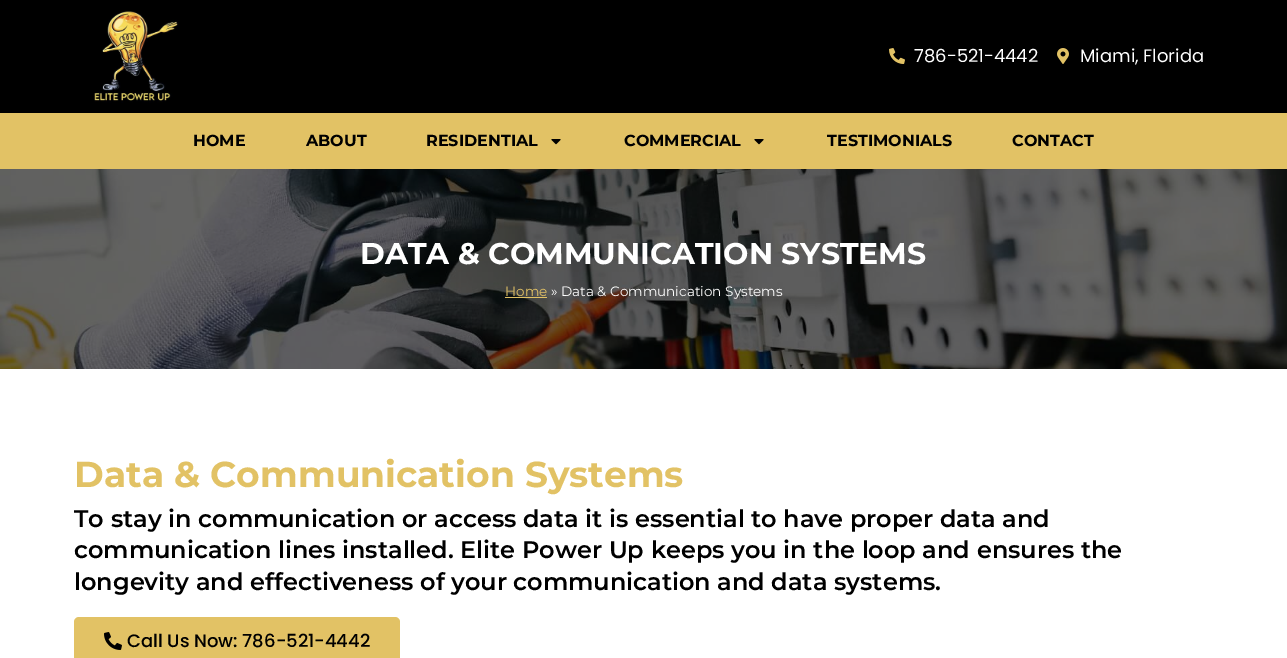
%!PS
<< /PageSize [1287 658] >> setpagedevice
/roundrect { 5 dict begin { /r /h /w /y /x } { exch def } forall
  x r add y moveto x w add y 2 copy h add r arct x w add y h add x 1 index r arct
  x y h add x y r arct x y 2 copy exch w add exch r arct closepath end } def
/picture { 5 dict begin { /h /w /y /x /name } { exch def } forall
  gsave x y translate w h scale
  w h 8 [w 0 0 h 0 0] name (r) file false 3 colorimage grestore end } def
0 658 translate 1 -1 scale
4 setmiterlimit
1 setgray
0 0 1287 658 rectfill
0 setgray
0 0 1287 113 rectfill
(img1.rgb) 94 11 85 92 picture
(img2.rgb) 889 48 16 16 picture
/Poppins-Regular [18 0 0 -18 0 0] selectfont
1 setgray
914 62 moveto (786-521-4442) show
(img3.rgb) 1057 48 12 16 picture
1080 62 moveto (Miami, Florida) show
0.886 0.761 0.396 setrgbcolor
0 113 1287 56 rectfill
/Montserrat-Bold [16 0 0 -16 0 0] selectfont
0 setgray
193 146 moveto (HOME) show
306 146 moveto (ABOUT) show
426 146 moveto (RESIDENTIAL) show
(img4.rgb) 551 139 10 6 picture
624 146 moveto (COMMERCIAL) show
(img4.rgb) 754 139 10 6 picture
827 146 moveto (TESTIMONIALS) show
1012 146 moveto (CONTACT) show
(img5.rgb) 0 169 1287 200 picture
/Montserrat-Bold [30 0 0 -30 0 0] selectfont
1 setgray
360 264 moveto (DATA & COMMUNICATION SYSTEMS) show
/Montserrat-Regular [13.6 0 0 -13.6 0 0] selectfont
0.886 0.761 0.396 setrgbcolor
505 296 moveto (Home) show
505 297 42 1 rectfill
1 setgray
551 296 moveto (» Data & Communication Systems) show
/Montserrat-Bold [36 0 0 -36 0 0] selectfont
0.886 0.761 0.396 setrgbcolor
74 487 moveto (Data & Communication Systems) show
/Montserrat-SemiBold [24 0 0 -24 0 0] selectfont
0 setgray
74 527 moveto (To stay in communication or access data it is essential to have proper data and) show
74 558 moveto (communication lines installed. Elite Power Up keeps you in the loop and ensures the) show
74 590 moveto (longevity and effectiveness of your communication and data systems.) show
0.886 0.761 0.396 setrgbcolor
74 617 326 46 5 roundrect fill
(img6.rgb) 104 632 18 18 picture
/Poppins-Medium [18 0 0 -18 0 0] selectfont
0 setgray
127 647 moveto (Call Us Now: 786-521-4442) show
showpage
